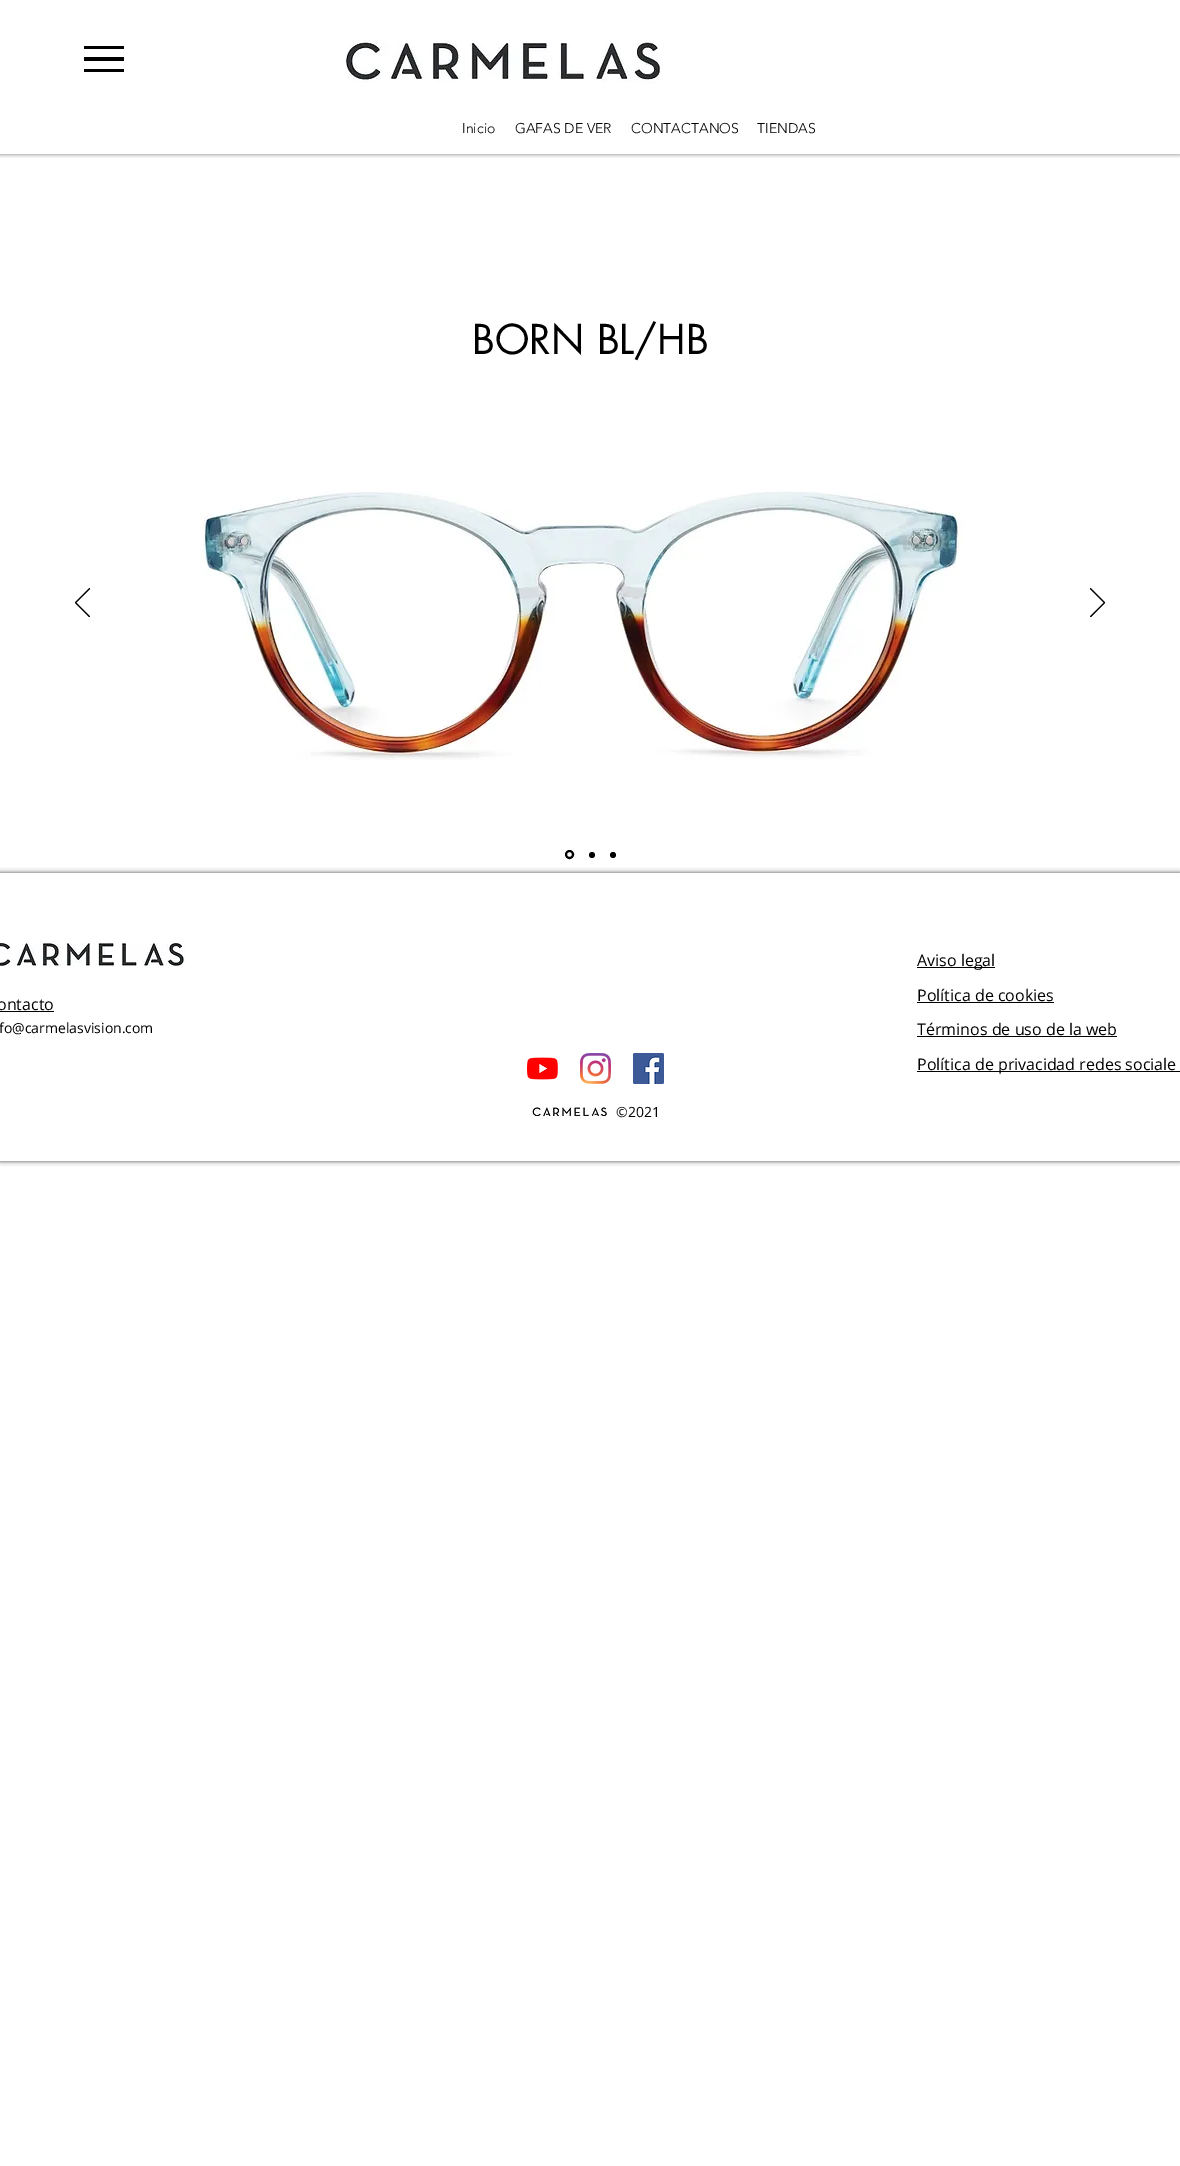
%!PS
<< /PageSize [1180 2166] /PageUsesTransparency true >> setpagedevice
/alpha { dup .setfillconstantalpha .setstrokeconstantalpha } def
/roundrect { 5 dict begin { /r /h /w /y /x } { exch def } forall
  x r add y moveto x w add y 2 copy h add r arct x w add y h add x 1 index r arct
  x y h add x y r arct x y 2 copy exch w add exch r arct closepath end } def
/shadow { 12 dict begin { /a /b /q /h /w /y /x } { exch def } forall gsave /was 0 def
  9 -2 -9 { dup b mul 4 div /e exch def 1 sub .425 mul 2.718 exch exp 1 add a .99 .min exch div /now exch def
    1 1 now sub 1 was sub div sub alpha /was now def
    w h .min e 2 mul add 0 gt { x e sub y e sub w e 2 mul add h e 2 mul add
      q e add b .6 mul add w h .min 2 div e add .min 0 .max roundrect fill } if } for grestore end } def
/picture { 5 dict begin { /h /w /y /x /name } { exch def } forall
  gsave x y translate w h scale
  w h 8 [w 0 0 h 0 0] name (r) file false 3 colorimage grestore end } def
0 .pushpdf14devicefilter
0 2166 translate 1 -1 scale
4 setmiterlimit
1 setgray
0 0 1180 2166 rectfill
gsave
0 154 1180 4 rectclip
0 setgray
0 0 1180 154 0 2.5 0.5 shadow
grestore
0 setgray
84 69 40 3 rectfill
84 46 40 3 rectfill
84 57 40 4 rectfill
(img1.rgb) 345 39 316 44 picture
/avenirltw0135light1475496-Light [14 0 0 -14 0 0] selectfont
462 133 moveto (Inicio) show
515 133 moveto (GAFAS DE VER) show
631 133 moveto (CONTACTANOS) show
757 133 moveto (TIENDAS) show
/futura-Regular [40 0 0 -40 0 0] selectfont
472 354 moveto (BORN BL/HB) show
(img2.rgb) 75 588 15 29 picture
(img3.rgb) 201 491 762 269 picture
(img4.rgb) 1090 588 15 29 picture
2 setlinewidth
newpath 569.5 854.5 3.5 0 360 arc closepath stroke
newpath 592 855 3 0 360 arc closepath fill
newpath 613 855 3 0 360 arc closepath fill
gsave
newpath 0 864 moveto 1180 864 lineto 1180 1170 lineto 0 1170 lineto closepath 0 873 moveto 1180 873 lineto 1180 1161 lineto 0 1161 lineto closepath eoclip newpath
0 873 1180 288 0 2.5 0.7 shadow
grestore
(img5.rgb) 0 943 186 24 picture
917 967 78 1 rectfill
/OpenSans-Regular [16 0 0 -16 0 0] selectfont
917 966 moveto (Aviso legal) show
917 1001 moveto (Política de cookies) show
917 1002 137 1 rectfill
-3 1010 moveto (ontacto) show
0 1011 54 1 rectfill
/OpenSans-Regular [14 0 0 -14 0 0] selectfont
-1 1033 moveto (fo@carmelasvision.com) show
/OpenSans-Regular [16 0 0 -16 0 0] selectfont
917 1035 moveto (Términos de uso de la web) show
917 1036 200 1 rectfill
(img6.rgb) 527 1057 31 23 picture
(img7.rgb) 580 1053 31 31 picture
(img8.rgb) 633 1053 31 31 picture
917 1071 263 1 rectfill
917 1070 moveto (Política de privacidad redes sociale) show
(img9.rgb) 531 1107 76 12 picture
/OpenSans-Regular [14 0 0 -14 0 0] selectfont
616 1117 moveto (©2021) show
.poppdf14devicefilter showpage
